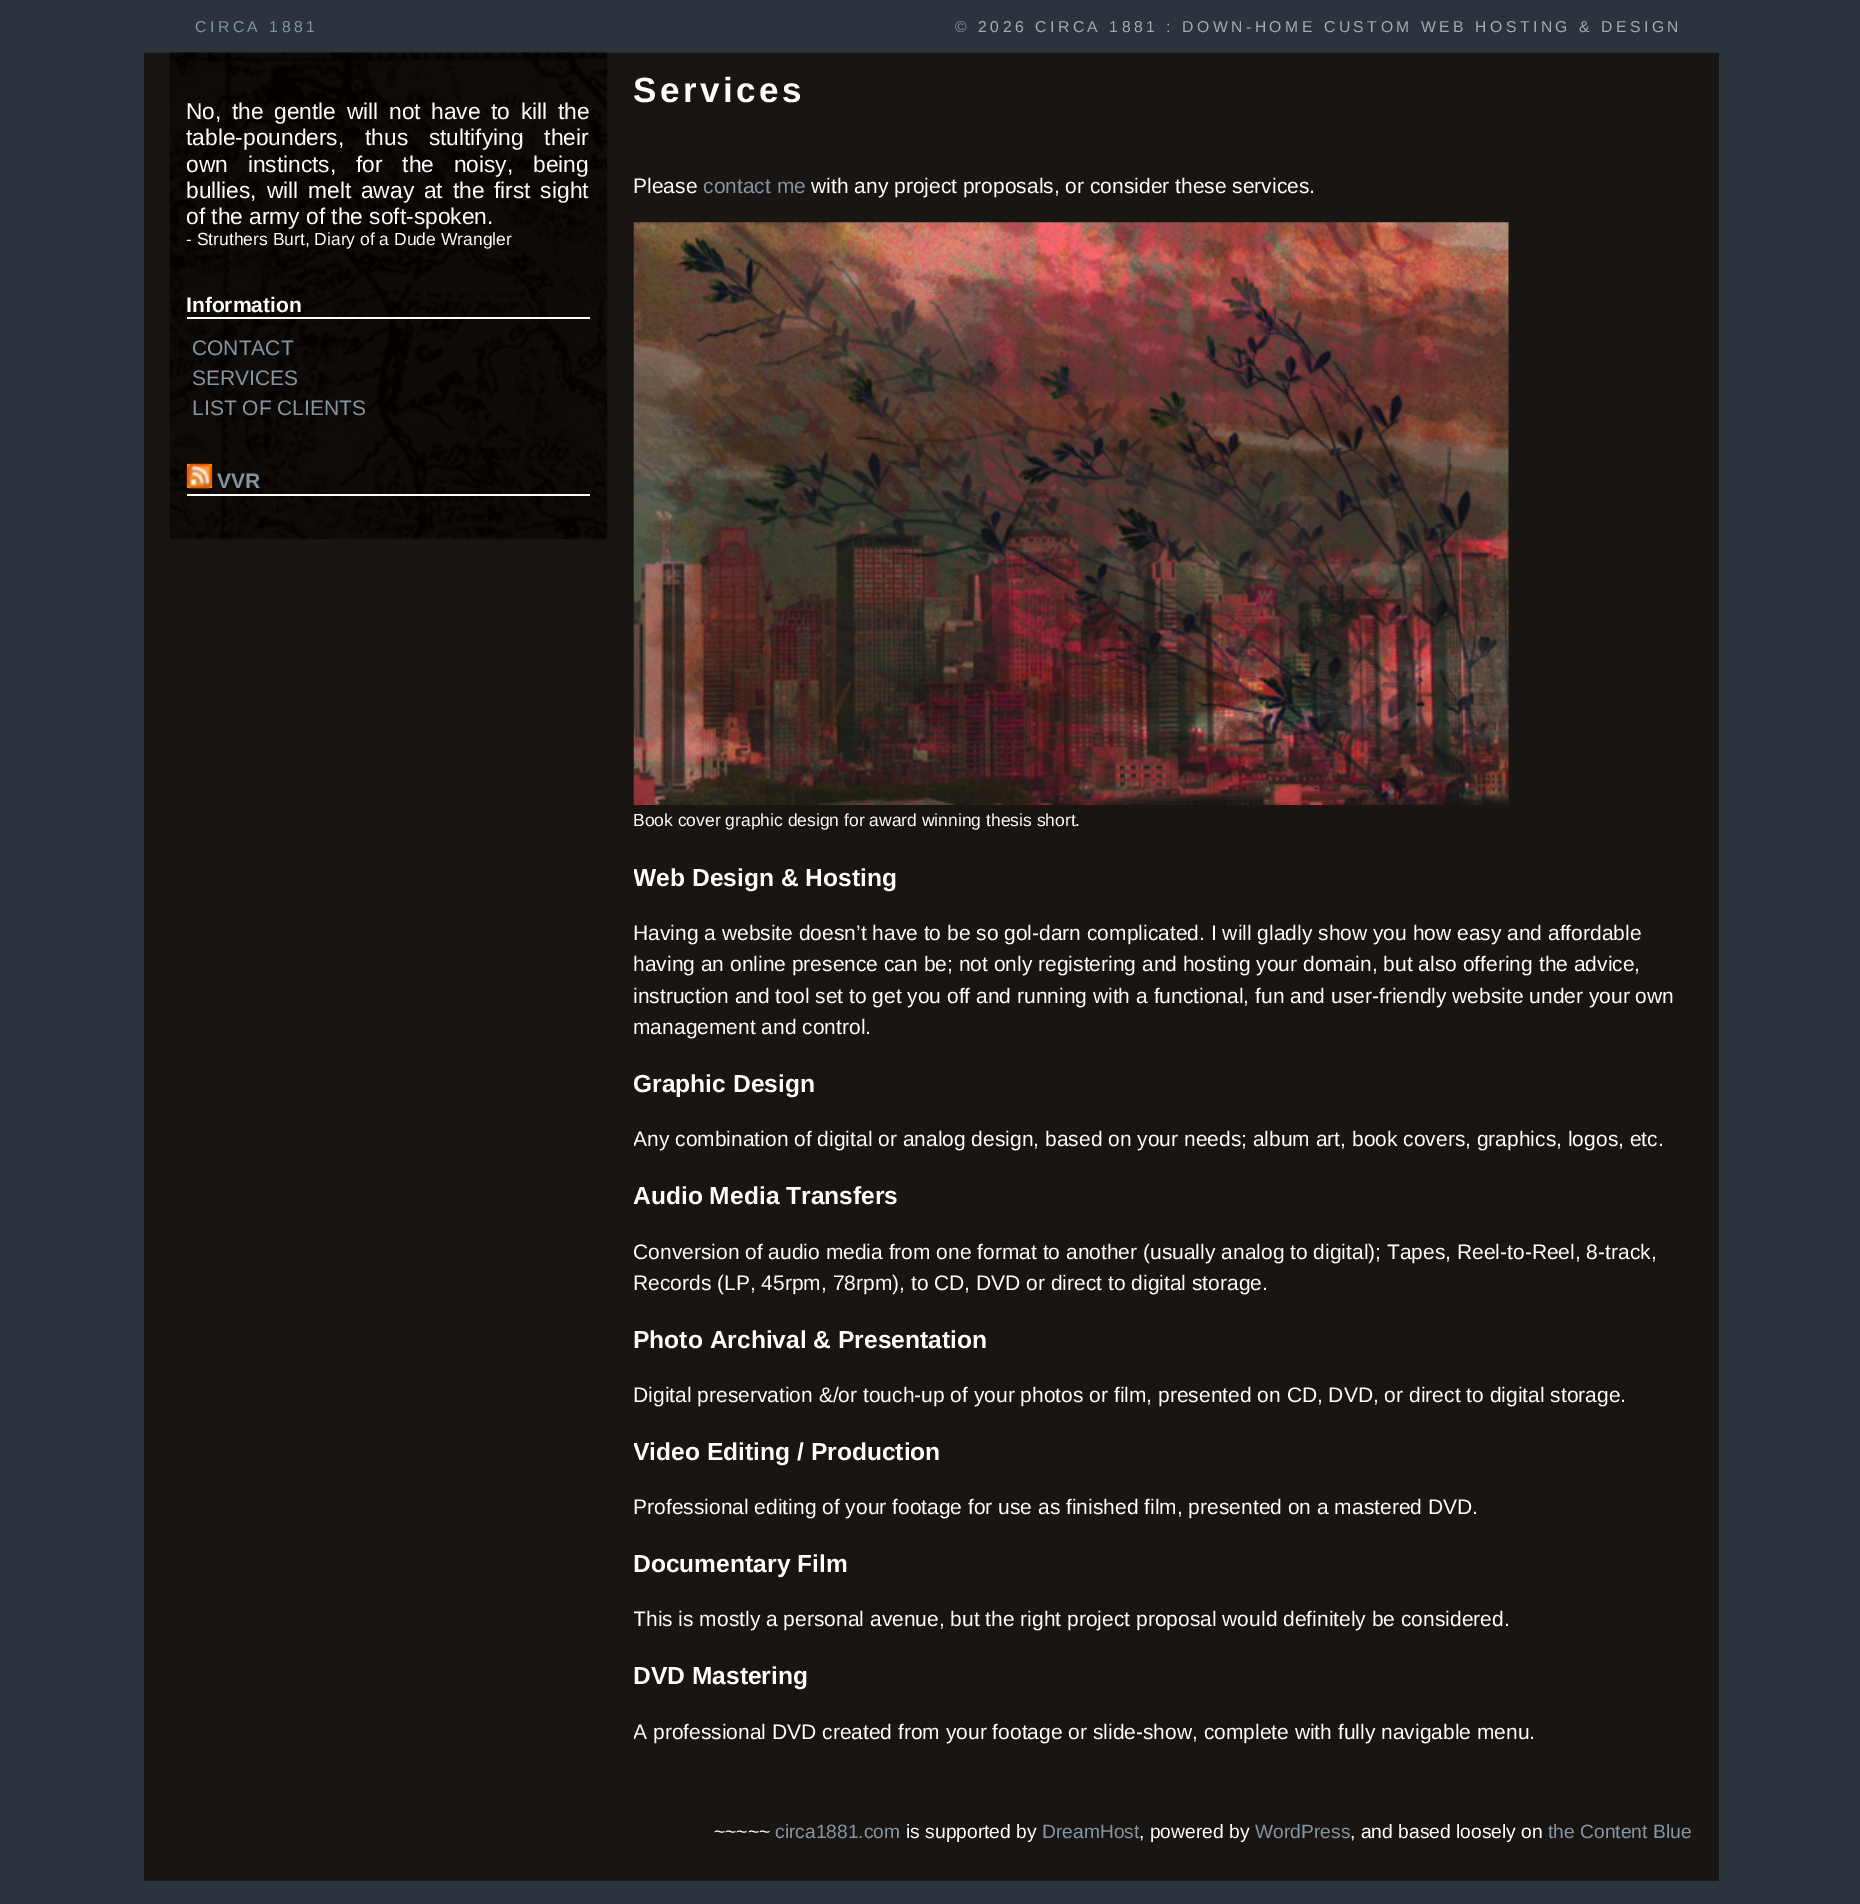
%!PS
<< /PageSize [1860 1904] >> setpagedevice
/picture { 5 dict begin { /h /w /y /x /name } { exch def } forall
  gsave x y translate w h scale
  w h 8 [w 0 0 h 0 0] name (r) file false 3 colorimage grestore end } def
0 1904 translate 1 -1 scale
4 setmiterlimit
0.169 0.2 0.239 setrgbcolor
0 0 1860 1904 rectfill
/LiberationSans-Regular [15.75 0 0 -15.75 0 0] selectfont
0.518 0.58 0.631 setrgbcolor
195 32 moveto 3.5 0 (CIRCA 1881) ashow
955 32 moveto 3.5 0 (©) ashow
0.667 setgray
978 32 moveto 3.5 0 (2026 CIRCA 1881 : DOWN-HOME CUSTOM WEB HOSTING & DESIGN) ashow
0.098 0.082 0.075 setrgbcolor
144 53 1575 1828 rectfill
(img1.rgb) 169 52 439 488 picture
/LiberationSans-Regular [22.75 0 0 -22.75 0 0] selectfont
1 setgray
186 119 moveto 4.25 0 32 (No, the gentle will not have to kill the) widthshow
186 145 moveto 14.5 0 32 (table-pounders, thus stultifying their) widthshow
186 172 moveto 13.5 0 32 (own instincts, for the noisy, being) widthshow
186 198 moveto 3.5 0 32 (bullies, will melt away at the first sight) widthshow
186 224 moveto (of the army of the soft-spoken.) show
/LiberationSans-Regular [17.5 0 0 -17.5 0 0] selectfont
186 245 moveto (- Struthers Burt, Diary of a Dude Wrangler) show
187 317 403 2 rectfill
/LiberationSans-Bold [21 0 0 -21 0 0] selectfont
186 312 moveto (Information) show
/LiberationSans-Regular [21 0 0 -21 0 0] selectfont
0.518 0.58 0.631 setrgbcolor
192 355 moveto (CONTACT) show
192 385 moveto (SERVICES) show
192 415 moveto (LIST OF CLIENTS) show
1 setgray
187 494 403 2 rectfill
1 0.647 0 setrgbcolor
187 464 25 24 rectfill
(img2.rgb) 186 463 27 26 picture
/LiberationSans-Bold [21 0 0 -21 0 0] selectfont
0.518 0.58 0.631 setrgbcolor
217 488 moveto (VVR) show
/LiberationSans-Bold [35 0 0 -35 0 0] selectfont
1 setgray
633 102 moveto 3.5 0 (Services) ashow
/LiberationSans-Regular [21 0 0 -21 0 0] selectfont
633 193 moveto (Please) show
0.518 0.58 0.631 setrgbcolor
703 193 moveto (contact me) show
1 setgray
811 193 moveto (with any project proposals, or consider these services.) show
(img3.rgb) 633 222 876 583 picture
/LiberationSans-Regular [17.5 0 0 -17.5 0 0] selectfont
633 826 moveto (Book cover graphic design for award winning thesis short.) show
gsave
634 149 1058 1619 rectclip
/LiberationSans-Bold [24.6 0 0 -24.6 0 0] selectfont
633 886 moveto (Web Design & Hosting) show
grestore
/LiberationSans-Regular [21 0 0 -21 0 0] selectfont
633 940 moveto (Having a website doesn’t have to be so gol-darn complicated. I will gladly show you how easy and affordable) show
633 971 moveto (having an online presence can be; not only registering and hosting your domain, but also offering the advice,) show
633 1003 moveto (instruction and tool set to get you off and running with a functional, fun and user-friendly website under your own) show
633 1034 moveto (management and control.) show
gsave
634 149 1058 1619 rectclip
/LiberationSans-Bold [24.6 0 0 -24.6 0 0] selectfont
633 1092 moveto (Graphic Design) show
/LiberationSans-Regular [21 0 0 -21 0 0] selectfont
633 1146 moveto (Any combination of digital or analog design, based on your needs; album art, book covers, graphics, logos, etc.) show
grestore
/LiberationSans-Bold [24.6 0 0 -24.6 0 0] selectfont
633 1204 moveto (Audio Media Transfers) show
gsave
634 149 1058 1619 rectclip
/LiberationSans-Regular [21 0 0 -21 0 0] selectfont
633 1259 moveto (Conversion of audio media from one format to another \(usually analog to digital\); Tapes, Reel-to-Reel, 8-track,) show
grestore
/LiberationSans-Regular [21 0 0 -21 0 0] selectfont
633 1290 moveto (Records \(LP, 45rpm, 78rpm\), to CD, DVD or direct to digital storage.) show
/LiberationSans-Bold [24.6 0 0 -24.6 0 0] selectfont
633 1348 moveto (Photo Archival & Presentation) show
/LiberationSans-Regular [21 0 0 -21 0 0] selectfont
633 1402 moveto (Digital preservation &/or touch-up of your photos or film, presented on CD, DVD, or direct to digital storage.) show
gsave
634 149 1058 1619 rectclip
/LiberationSans-Bold [24.6 0 0 -24.6 0 0] selectfont
633 1460 moveto (Video Editing / Production) show
grestore
633 1514 moveto (Professional editing of your footage for use as finished film, presented on a mastered DVD.) show
/LiberationSans-Bold [24.6 0 0 -24.6 0 0] selectfont
633 1572 moveto (Documentary Film) show
gsave
634 149 1058 1619 rectclip
/LiberationSans-Regular [21 0 0 -21 0 0] selectfont
633 1626 moveto (This is mostly a personal avenue, but the right project proposal would definitely be considered.) show
grestore
633 1684 moveto (DVD Mastering) show
gsave
634 149 1058 1619 rectclip
/LiberationSans-Regular [21 0 0 -21 0 0] selectfont
633 1739 moveto (A professional DVD created from your footage or slide-show, complete with fully navigable menu.) show
grestore
/LiberationSans-Regular [19.25 0 0 -19.25 0 0] selectfont
714 1838 moveto (~~~~~) show
0.518 0.58 0.631 setrgbcolor
775 1838 moveto (circa1881.com) show
1 setgray
906 1838 moveto (is supported by) show
0.518 0.58 0.631 setrgbcolor
1042 1838 moveto (DreamHost) show
1 setgray
1139 1838 moveto (, powered by) show
0.518 0.58 0.631 setrgbcolor
1255 1838 moveto (WordPress) show
1 setgray
1350 1838 moveto (, and based loosely on) show
0.518 0.58 0.631 setrgbcolor
1548 1838 moveto (the Content Blue) show
showpage
